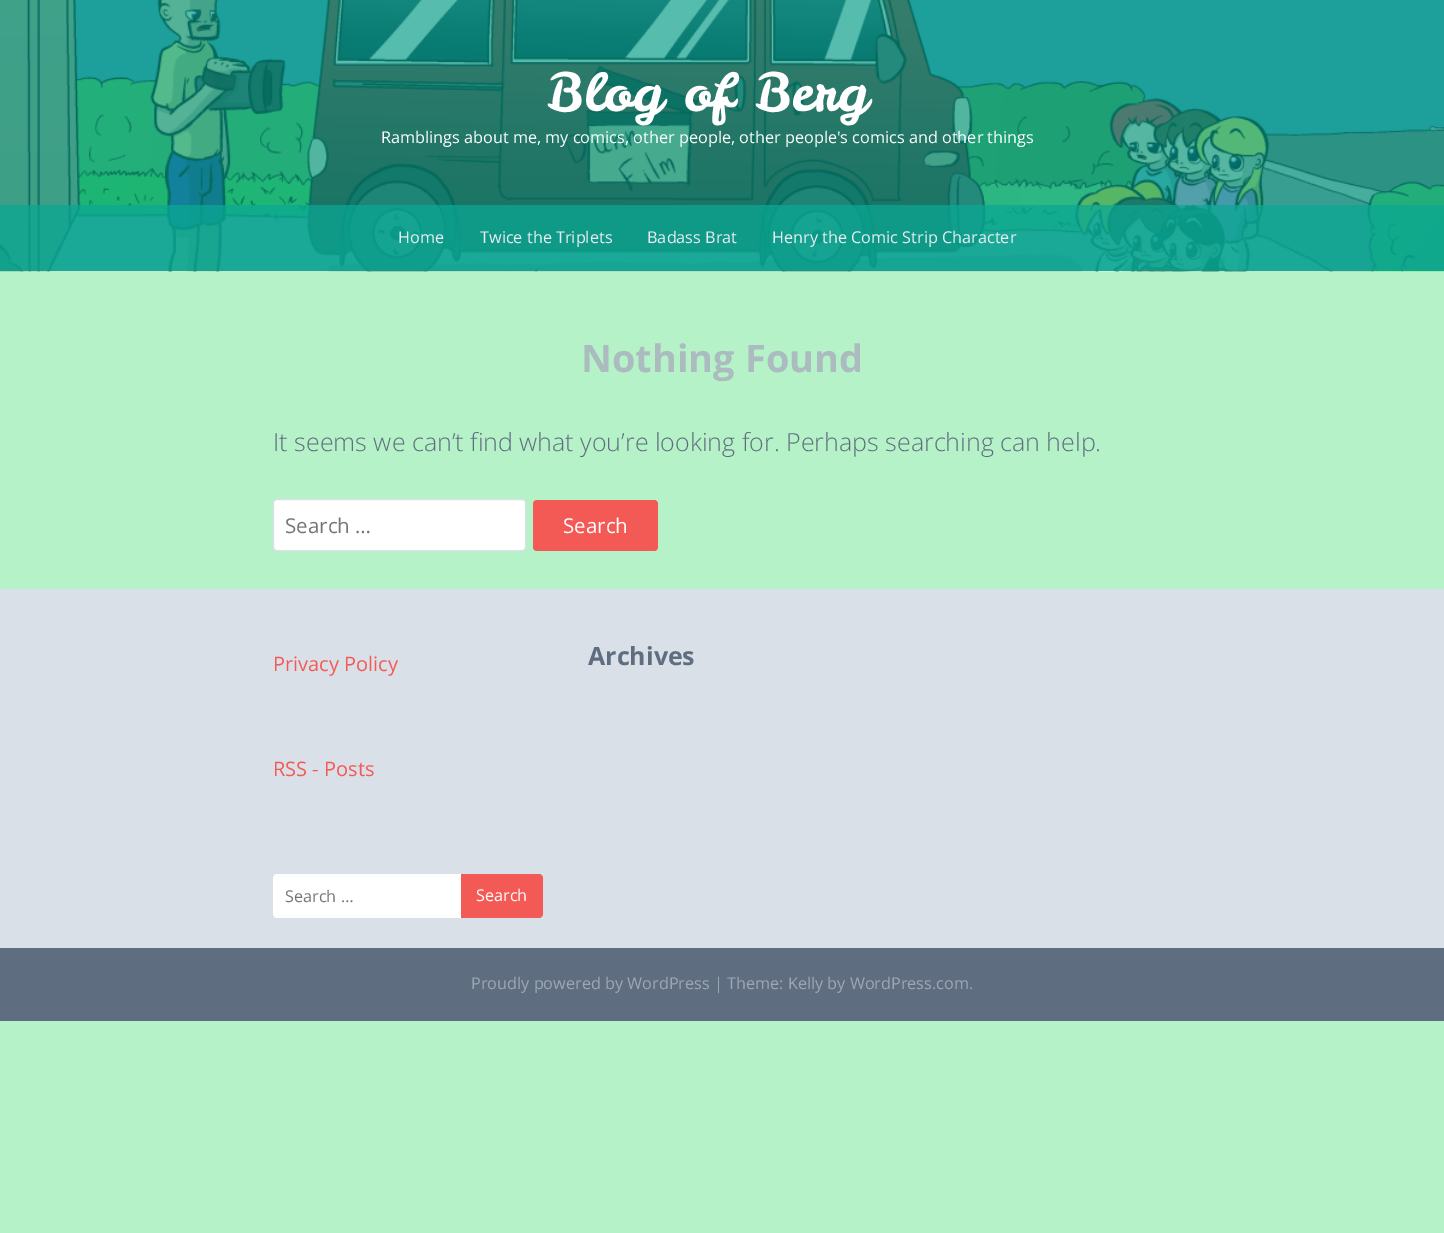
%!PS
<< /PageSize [1444 1233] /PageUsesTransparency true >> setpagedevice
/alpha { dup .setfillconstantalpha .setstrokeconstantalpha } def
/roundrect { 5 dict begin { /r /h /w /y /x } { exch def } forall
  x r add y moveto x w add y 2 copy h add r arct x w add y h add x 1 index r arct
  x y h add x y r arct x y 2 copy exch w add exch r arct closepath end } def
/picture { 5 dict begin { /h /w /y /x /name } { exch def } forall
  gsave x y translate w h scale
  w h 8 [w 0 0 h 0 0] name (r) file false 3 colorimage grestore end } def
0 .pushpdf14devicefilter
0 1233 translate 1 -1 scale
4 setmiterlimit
0.71 0.949 0.78 setrgbcolor
0 0 1444 1233 rectfill
(img1.rgb) 0 0 1444 272 picture
/LeckerliOne-Regular [52.5 0 0 -52.5 0 0] selectfont
1 setgray
547 111 moveto (Blog of Berg) show
/OpenSans-Regular [16.25 0 0 -16.25 0 0] selectfont
381 143 moveto (Ramblings about me, my comics, other people, other people's comics and other things) show
0.75 alpha
0.039 0.655 0.576 setrgbcolor
0 205 1444 66 rectfill
1 alpha
0.918 0.929 0.945 setrgbcolor
398 243 moveto (Home) show
480 243 moveto (Twice the Triplets) show
647 243 moveto (Badass Brat) show
772 243 moveto (Henry the Comic Strip Character) show
/OpenSans-Bold [38 0 0 -38 0 0] selectfont
0.671 0.733 0.753 setrgbcolor
581 372 moveto (Nothing Found) show
/OpenSans-Light [25 0 0 -25 0 0] selectfont
0.373 0.427 0.502 setrgbcolor
273 451 moveto (It seems we can’t find what you’re looking for. Perhaps searching can help.) show
1 setgray
273.5 499.5 252 51 3.5 roundrect gsave fill grestore
0.855 0.878 0.91 setrgbcolor
stroke
/OpenSans-Regular [20.5 0 0 -20.5 0 0] selectfont
0.459 setgray
285 533 moveto (Search …) show
0.953 0.349 0.333 setrgbcolor
533 500 125 51 4 roundrect fill
1 setgray
563 533 moveto (Search) show
0.855 0.878 0.91 setrgbcolor
0 589 1444 359 rectfill
/OpenSans-Regular [20 0 0 -20 0 0] selectfont
0.953 0.349 0.333 setrgbcolor
273 671 moveto (Privacy Policy) show
273 776 moveto (RSS - Posts) show
1 setgray
newpath 277 874 moveto 524 874 lineto 524 918 lineto 277 918 lineto 275 918 273 916 273 914 curveto 273 878 lineto 273 876 275 874 277 874 curveto closepath fill
/OpenSans-Regular [16.25 0 0 -16.25 0 0] selectfont
0.459 setgray
285 902 moveto (Search …) show
0.953 0.349 0.333 setrgbcolor
newpath 461 874 moveto 539 874 lineto 541 874 543 876 543 878 curveto 543 914 lineto 543 916 541 918 539 918 curveto 461 918 lineto closepath fill
1 setgray
476 901 moveto (Search) show
/OpenSans-Bold [25 0 0 -25 0 0] selectfont
0.373 0.427 0.502 setrgbcolor
588 665 moveto (Archives) show
0 948 1444 73 rectfill
/OpenSans-Regular [16.25 0 0 -16.25 0 0] selectfont
0.616 0.655 0.706 setrgbcolor
471 989 moveto (Proudly powered by WordPress | Theme: Kelly by WordPress.com.) show
.poppdf14devicefilter showpage
